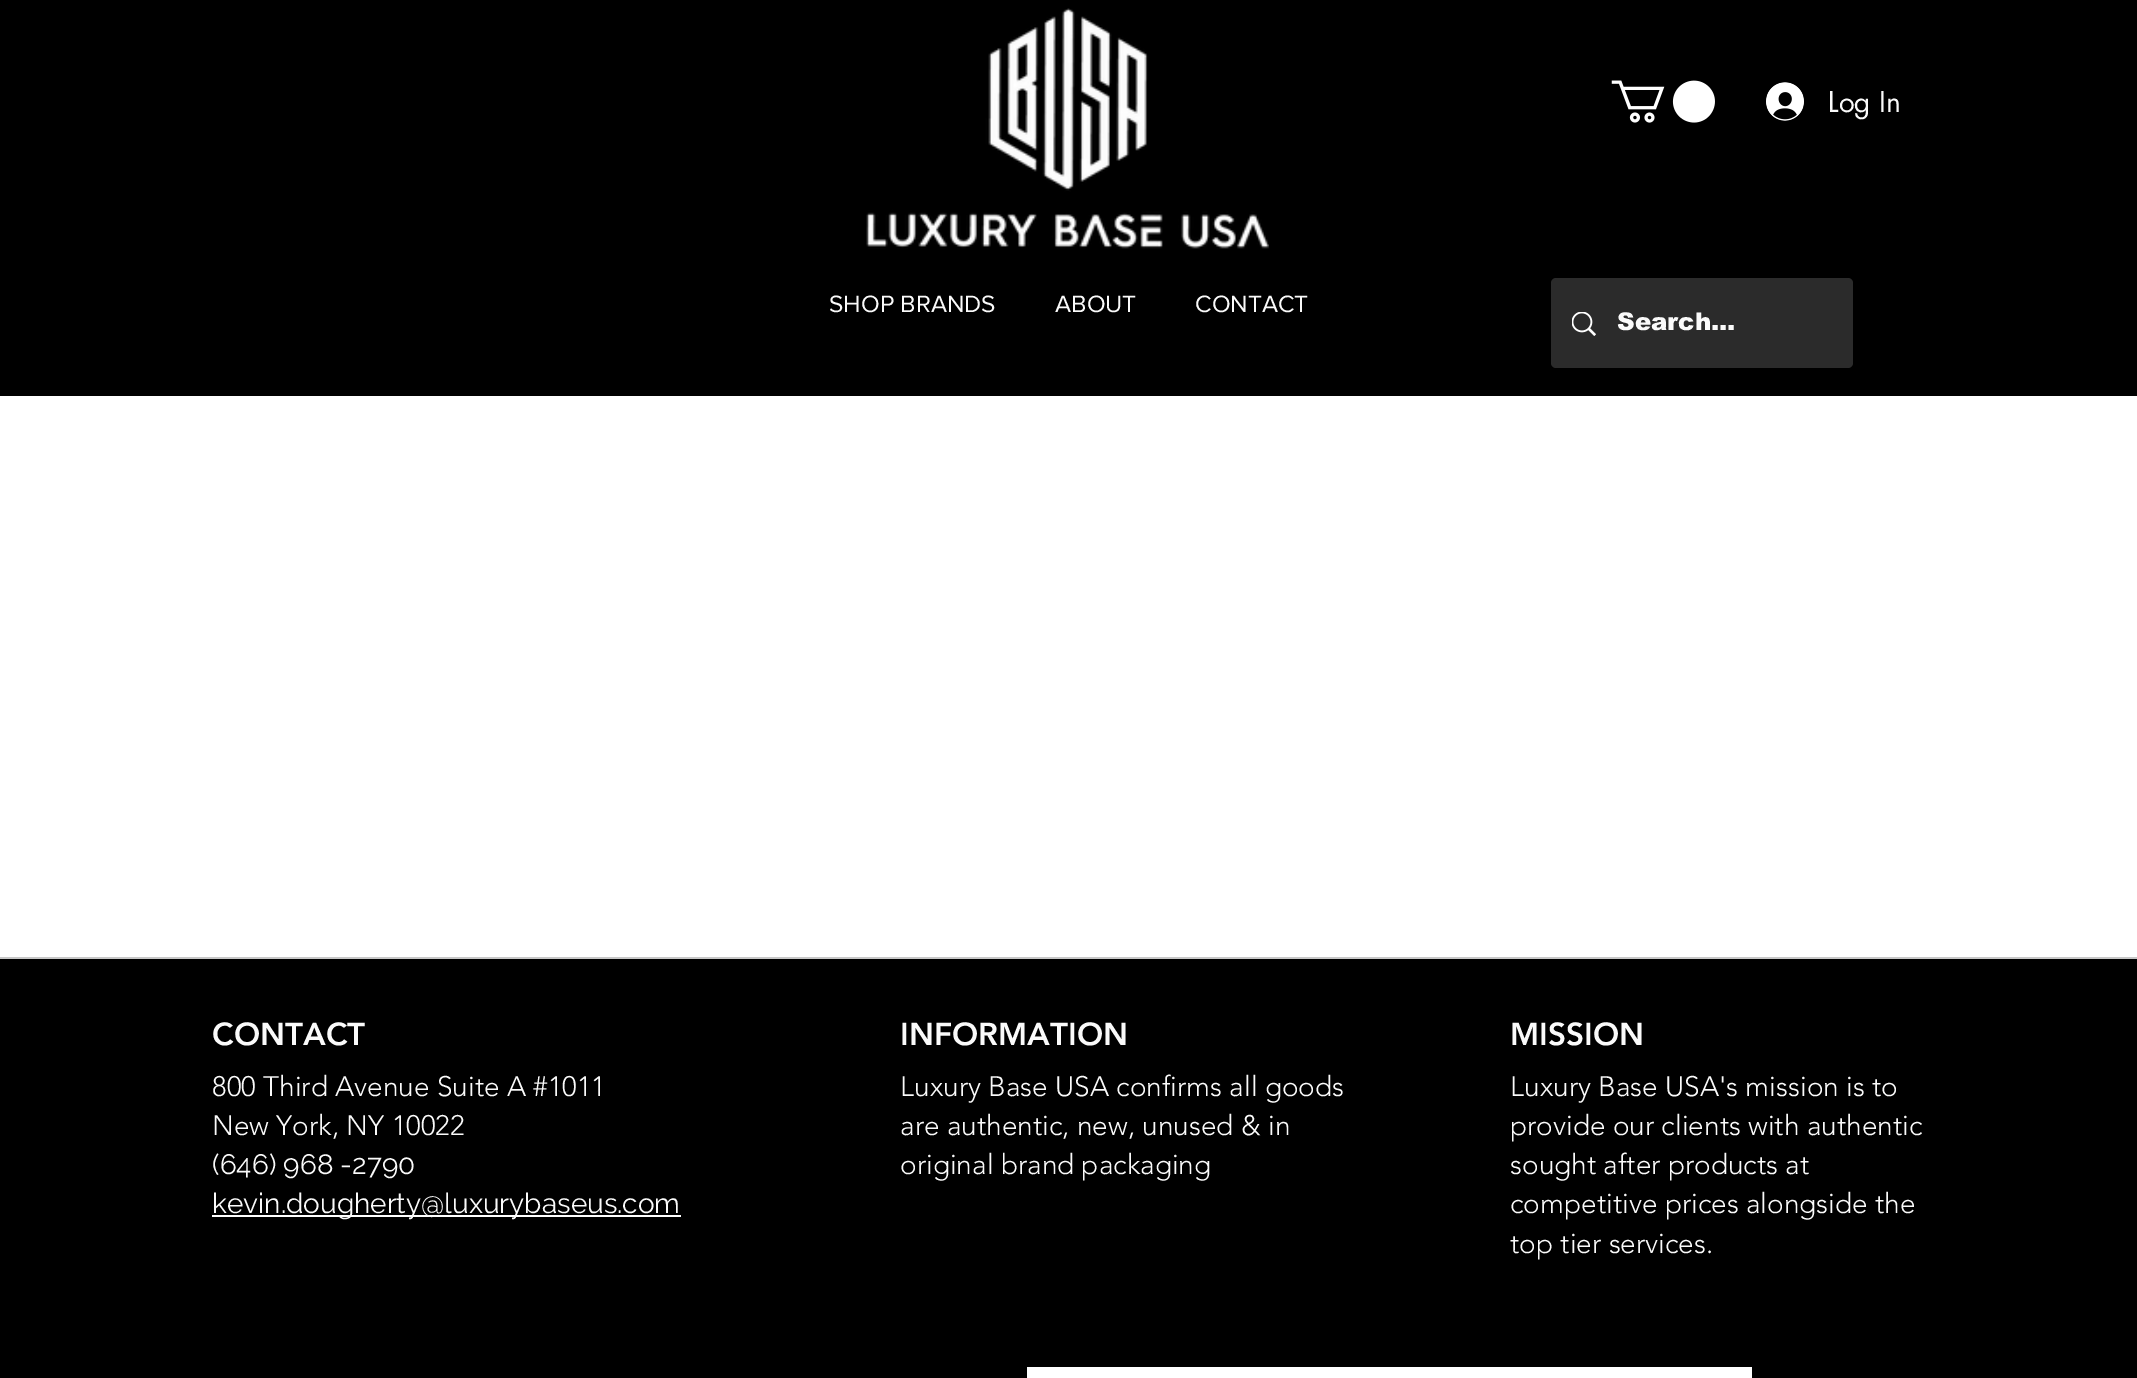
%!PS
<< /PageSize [2137 1378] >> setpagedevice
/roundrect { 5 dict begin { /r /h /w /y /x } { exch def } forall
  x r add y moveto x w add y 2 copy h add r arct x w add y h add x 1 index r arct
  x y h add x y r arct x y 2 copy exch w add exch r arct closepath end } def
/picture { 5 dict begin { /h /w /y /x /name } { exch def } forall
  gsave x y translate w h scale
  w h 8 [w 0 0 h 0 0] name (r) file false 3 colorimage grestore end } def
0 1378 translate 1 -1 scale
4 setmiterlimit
1 setgray
0 0 2137 1378 rectfill
0 setgray
0 0 2137 396 rectfill
(img1.rgb) 866 8 403 241 picture
(img2.rgb) 1611 80 104 43 picture
(img3.rgb) 1766 82 38 39 picture
/futura-Regular [28 0 0 -28 0 0] selectfont
0.98 setgray
1828 112 moveto (Log In) show
/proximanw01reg-Regular [24.5 0 0 -24.5 0 0] selectfont
829 312 moveto (SHOP BRANDS) show
1055 312 moveto (ABOUT) show
1195 312 moveto (CONTACT) show
0.169 setgray
1551 278 302 90 5 roundrect fill
(img4.rgb) 1572 312 24 24 picture
/arial-Black [24.5 0 0 -24.5 0 0] selectfont
0.98 setgray
1617 330 moveto (Search...) show
0 setgray
0 959 2137 419 rectfill
0.78 setgray
0 957 2137 2 rectfill
/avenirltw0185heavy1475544-Black [31.5 0 0 -31.5 0 0] selectfont
0.98 setgray
212 1045 moveto (CONTACT) show
900 1045 moveto (INFORMATION) show
1510 1045 moveto (MISSION) show
/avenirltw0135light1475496-Light [28 0 0 -28 0 0] selectfont
212 1096 moveto (800 Third Avenue Suite A #1011) show
212 1135 moveto (New York, NY 10022) show
/Raleway-Regular [28 0 0 -28 0 0] selectfont
212 1174 moveto (\(646\) 968 -2790) show
1 setgray
212 1215 469 2 rectfill
0.98 setgray
212 1213 moveto (kevin.dougherty@luxurybaseus.com) show
/avenirltw0135light1475496-Light [28 0 0 -28 0 0] selectfont
900 1096 moveto (Luxury Base USA confirms all goods) show
900 1135 moveto (are authentic, new, unused & in) show
900 1174 moveto (original brand packaging) show
1510 1096 moveto (Luxury Base USA's mission is to) show
1510 1135 moveto (provide our clients with authentic) show
1510 1174 moveto (sought after products at) show
1510 1213 moveto (competitive prices alongside the) show
1510 1253 moveto (top tier services.) show
1 setgray
1027 1367 725 11 rectfill
showpage
